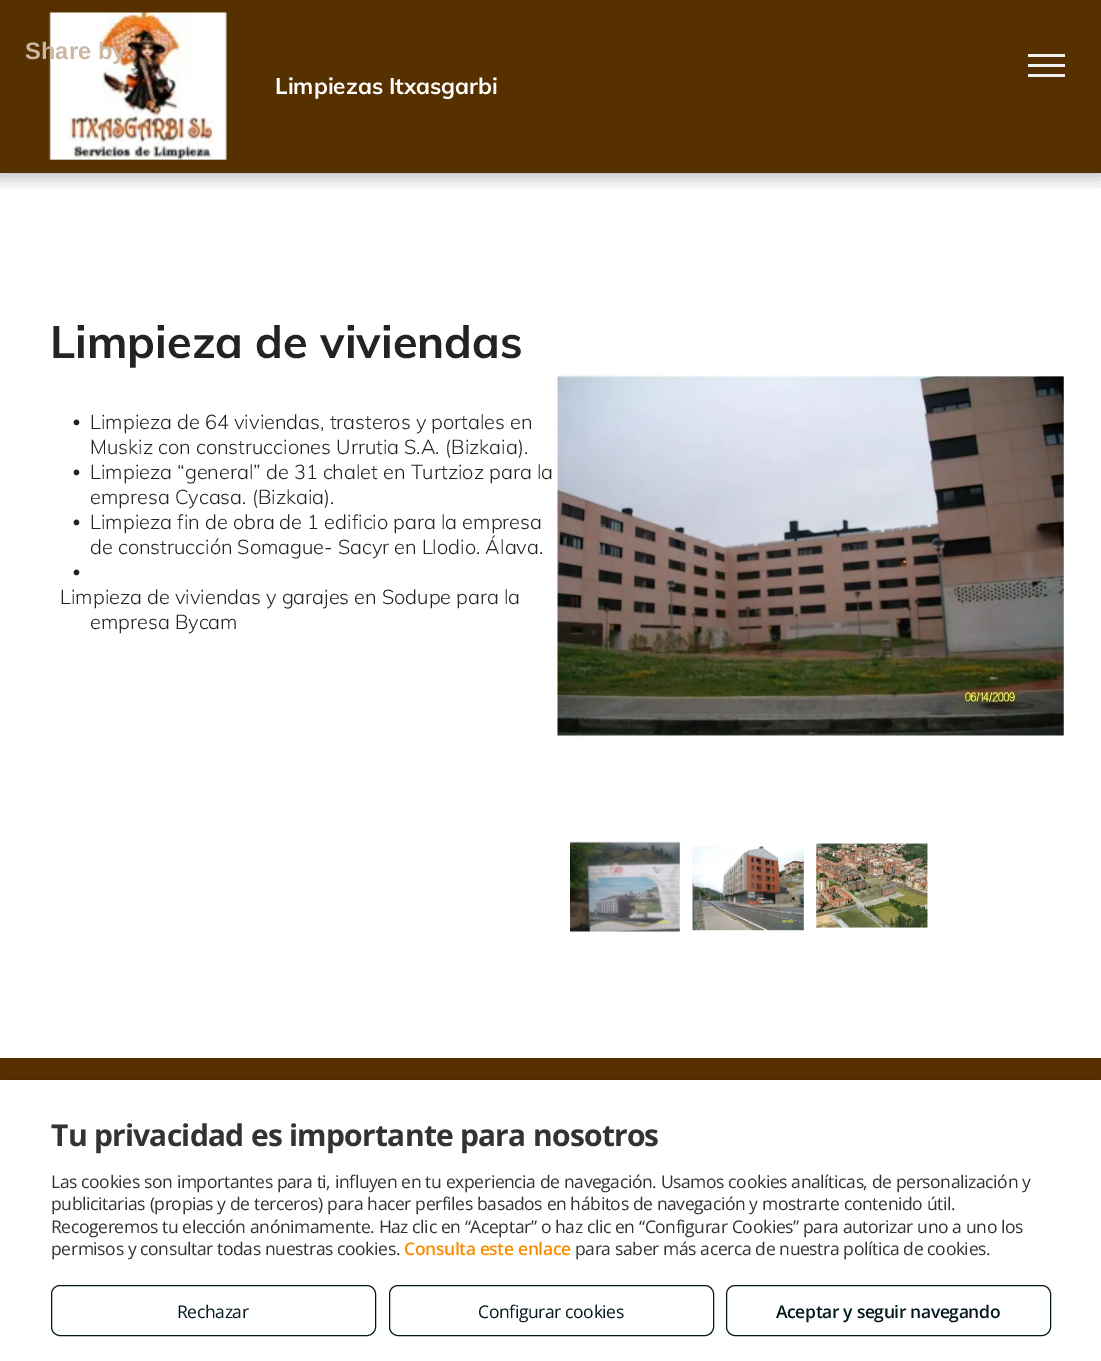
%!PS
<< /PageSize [1101 1361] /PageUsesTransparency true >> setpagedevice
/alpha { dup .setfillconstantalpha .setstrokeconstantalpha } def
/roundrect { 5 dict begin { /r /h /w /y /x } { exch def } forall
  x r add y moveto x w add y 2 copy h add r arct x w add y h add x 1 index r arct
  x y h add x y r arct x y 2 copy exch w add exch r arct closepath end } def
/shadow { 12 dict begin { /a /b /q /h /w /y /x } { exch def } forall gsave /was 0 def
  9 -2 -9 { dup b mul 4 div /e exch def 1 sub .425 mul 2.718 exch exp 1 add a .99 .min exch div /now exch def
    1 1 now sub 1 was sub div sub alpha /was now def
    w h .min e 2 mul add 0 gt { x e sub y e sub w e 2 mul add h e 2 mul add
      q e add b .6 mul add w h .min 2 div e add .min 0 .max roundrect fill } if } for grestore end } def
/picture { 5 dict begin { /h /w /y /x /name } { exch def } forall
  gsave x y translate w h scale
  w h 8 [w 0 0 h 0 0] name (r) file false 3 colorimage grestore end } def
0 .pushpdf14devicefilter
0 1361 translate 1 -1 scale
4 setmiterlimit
1 setgray
0 0 1101 1361 rectfill
0.969 setgray
0 173 1101 15 rectfill
0 setgray
0 4 1101 172 0 7 0.25 shadow
0.341 0.188 0 setrgbcolor
0 0 1101 173 rectfill
(img1.rgb) 48 12 179 148 picture
/LiberationSans-Bold [23.75 0 0 -23.75 0 0] selectfont
0.796 0.718 0.639 setrgbcolor
25 59 moveto (Share by:) show
0.941 setgray
1028 54 37 3 rectfill
1028 64 37 3 rectfill
1028 74 37 3 rectfill
/Muli-Bold [22.5 0 0 -22.5 0 0] selectfont
1 setgray
275 94 moveto (Limpiezas Itxasgarbi) show
/Muli-Bold [45 0 0 -45 0 0] selectfont
0.137 setgray
50 358 moveto (Limpieza de viviendas) show
/LiberationSans-Bold [20 0 0 -20 0 0] selectfont
73 429 moveto (•) show
/Muli-Light [20 0 0 -20 0 0] selectfont
90 429 moveto (Limpieza de 64 viviendas, trasteros y portales en) show
90 454 moveto (Muskiz con construcciones Urrutia S.A. \(Bizkaia\).) show
/LiberationSans-Bold [20 0 0 -20 0 0] selectfont
73 479 moveto (•) show
/Muli-Light [20 0 0 -20 0 0] selectfont
90 479 moveto (Limpieza “general” de 31 chalet en Turtzioz para la) show
90 504 moveto (empresa Cycasa. \(Bizkaia\).) show
/LiberationSans-Bold [20 0 0 -20 0 0] selectfont
73 529 moveto (•) show
/Muli-Light [20 0 0 -20 0 0] selectfont
90 529 moveto (Limpieza fin de obra de 1 edificio para la empresa) show
90 554 moveto (de construcción Somague- Sacyr en Llodio. Álava.) show
/LiberationSans-Bold [20 0 0 -20 0 0] selectfont
73 579 moveto (•) show
/Muli-Light [20 0 0 -20 0 0] selectfont
60 604 moveto (Limpieza de viviendas y garajes en Sodupe para la) show
90 629 moveto (empresa Bycam) show
(img2.rgb) 557 374 507 365 picture
(img3.rgb) 570 841 110 91 picture
(img4.rgb) 692 846 112 85 picture
(img5.rgb) 816 842 112 87 picture
0.341 0.188 0 setrgbcolor
0 1058 1101 22 rectfill
0 setgray
0 1078 1101 281 0 6 0.1 shadow
1 setgray
0 1080 1101 281 rectfill
/OpenSans-Bold [30 0 0 -30 0 0] selectfont
0.2 setgray
51 1146 moveto -0.75 0 (Tu privacidad es importante para nosotros) ashow
/OpenSans-Regular [17.5 0 0 -17.5 0 0] selectfont
51 1188 moveto -0.38 0 (Las cookies son importantes para ti, influyen en tu experiencia de navegación. Usamos cookies analíticas, de personalización y) ashow
51 1210 moveto -0.38 0 (publicitarias \(propias y de terceros\) para hacer perfiles basados en hábitos de navegación y mostrarte contenido útil.) ashow
51 1233 moveto -0.38 0 (Recogeremos tu elección anónimamente. Haz clic en “Aceptar” o haz clic en “Configurar Cookies” para autorizar uno a uno los) ashow
51 1255 moveto -0.38 0 (permisos y consultar todas nuestras cookies.) ashow
/OpenSans-SemiBold [17.5 0 0 -17.5 0 0] selectfont
0.984 0.549 0 setrgbcolor
404 1255 moveto -0.38 0 (Consulta este enlace) ashow
/OpenSans-Regular [17.5 0 0 -17.5 0 0] selectfont
0.2 setgray
575 1255 moveto -0.38 0 (para saber más acerca de nuestra política de cookies.) ashow
0.012 0.094 0.118 setrgbcolor
51.5 1285.5 324 50 8.5 roundrect stroke
177 1318 moveto -0.38 0 (Rechazar) ashow
389.5 1285.5 324 50 8.5 roundrect stroke
478 1318 moveto -0.38 0 (Configurar cookies) ashow
726.5 1285.5 324 50 8.5 roundrect stroke
/OpenSans-SemiBold [17.5 0 0 -17.5 0 0] selectfont
776 1318 moveto -0.38 0 (Aceptar y seguir navegando) ashow
.poppdf14devicefilter showpage
